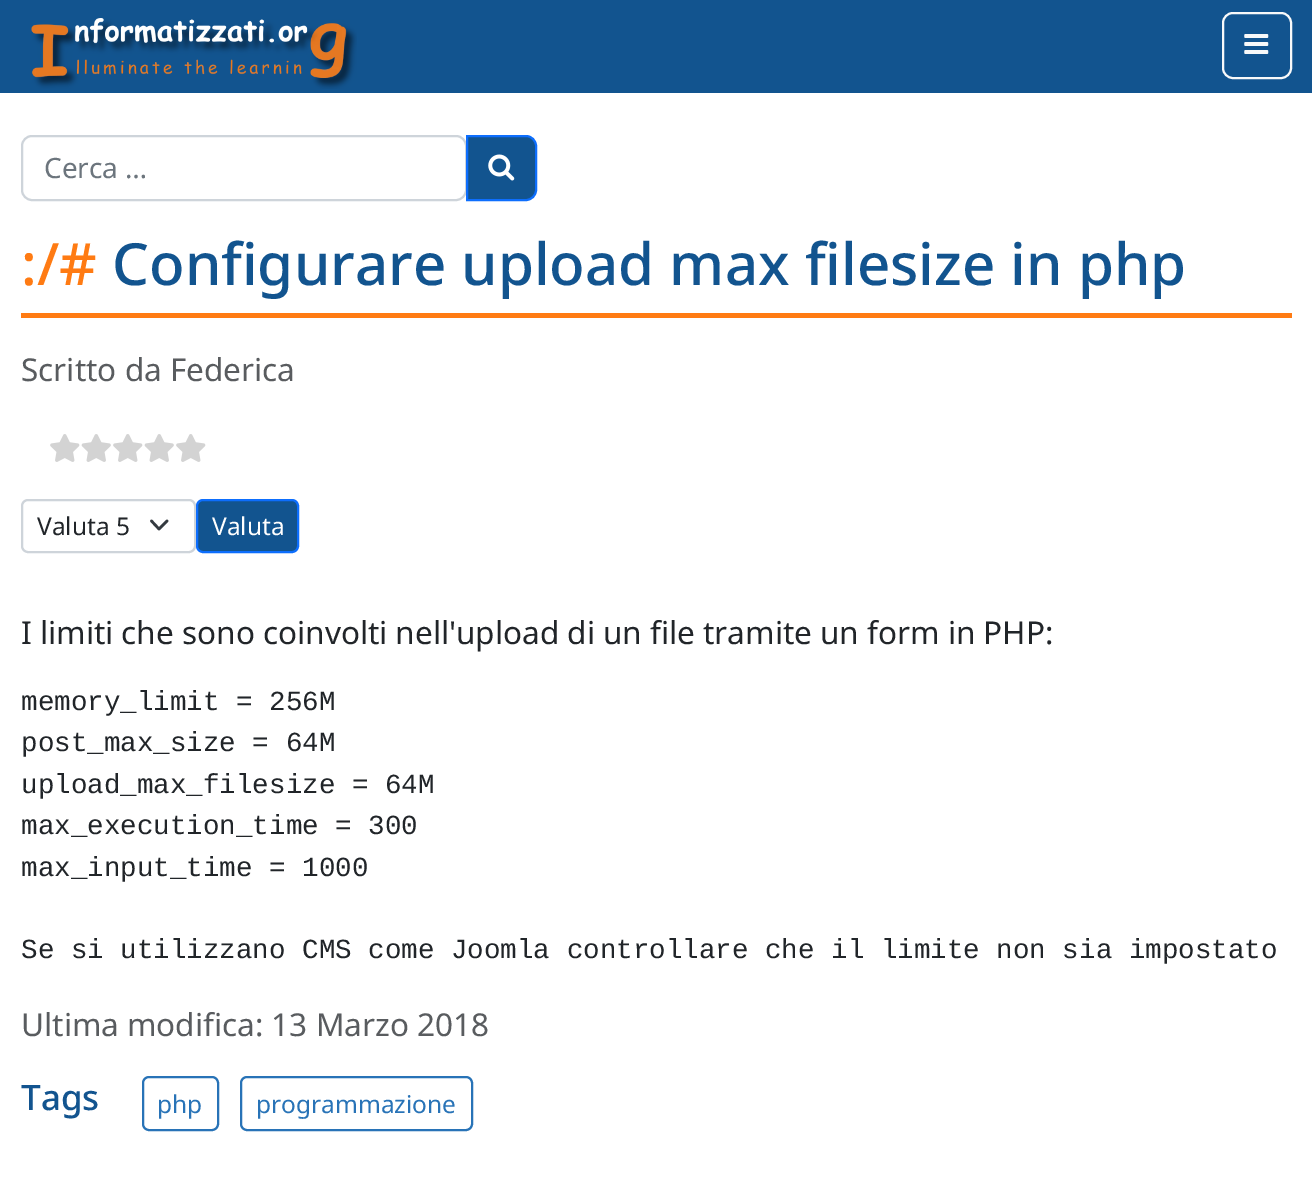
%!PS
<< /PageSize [1312 1188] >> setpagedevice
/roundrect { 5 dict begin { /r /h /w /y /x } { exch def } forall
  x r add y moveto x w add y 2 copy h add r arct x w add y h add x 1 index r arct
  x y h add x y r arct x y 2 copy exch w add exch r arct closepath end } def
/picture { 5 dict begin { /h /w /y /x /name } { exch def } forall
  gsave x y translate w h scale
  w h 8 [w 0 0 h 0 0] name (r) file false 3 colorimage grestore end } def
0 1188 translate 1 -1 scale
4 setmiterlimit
0.071 0.329 0.561 setrgbcolor
0 0 1312 1188 rectfill
(img1.rgb) 31 18 326 71 picture
0.973 0.976 0.98 setrgbcolor
2 setlinewidth
1223 13 68 65 10 roundrect stroke
(img2.rgb) 1244 34 25 20 picture
1 setgray
0 93 1312 1095 rectfill
0.808 0.831 0.855 setrgbcolor
22 136 444 64 10 roundrect stroke
/NotoSans-Regular [28 0 0 -28 0 0] selectfont
0.424 0.459 0.49 setrgbcolor
44 178 moveto (Cerca …) show
0.071 0.329 0.561 setrgbcolor
newpath 467 136 moveto 526 136 lineto 531.5 136 536 140.5 536 146 curveto 536 190 lineto 536 195.5 531.5 200 526 200 curveto 467 200 lineto closepath gsave fill grestore
0.051 0.431 0.992 setrgbcolor
stroke
(img3.rgb) 488 154 27 27 picture
1 0.482 0.075 setrgbcolor
21 313 1271 5 rectfill
/NotoSans-Medium [58.2 0 0 -58.2 0 0] selectfont
21 285 moveto (:/#) show
0.071 0.329 0.561 setrgbcolor
112 285 moveto (Configurare upload max filesize in php) show
/NotoSans-Regular [31.5 0 0 -31.5 0 0] selectfont
0.349 0.361 0.373 setrgbcolor
21 381 moveto (Scritto da Federica) show
(img4.rgb) 50 434 30 28 picture
(img5.rgb) 81 434 30 28 picture
(img4.rgb) 113 434 30 28 picture
(img5.rgb) 144 434 30 28 picture
(img4.rgb) 176 434 30 28 picture
0.204 0.227 0.251 setrgbcolor
2.6 setlinewidth
1 setlinecap
1 setlinejoin
newpath 151.5 521 moveto 159 529 lineto 167 521 lineto stroke
0.808 0.831 0.855 setrgbcolor
2 setlinewidth
0 setlinecap
0 setlinejoin
22 500 173 52 6 roundrect stroke
/NotoSans-Regular [24.5 0 0 -24.5 0 0] selectfont
0.129 0.145 0.161 setrgbcolor
37 535 moveto (Valuta 5) show
0.071 0.329 0.561 setrgbcolor
197 500 101 52 6 roundrect gsave fill grestore
0.051 0.431 0.992 setrgbcolor
stroke
1 setgray
212 535 moveto (Valuta) show
/NotoSans-Regular [31.5 0 0 -31.5 0 0] selectfont
0.129 0.145 0.161 setrgbcolor
21 644 moveto (I limiti che sono coinvolti nell'upload di un file tramite un form in PHP:) show
/LiberationMono-Regular [27.55 0 0 -27.55 0 0] selectfont
21 710 moveto (memory_limit = 256M) show
21 751 moveto (post_max_size = 64M) show
21 793 moveto (upload_max_filesize = 64M) show
21 834 moveto (max_execution_time = 300) show
21 876 moveto (max_input_time = 1000) show
21 958 moveto (Se si utilizzano CMS come Joomla controllare che il limite non sia impostato) show
/NotoSans-Regular [31.5 0 0 -31.5 0 0] selectfont
0.349 0.361 0.373 setrgbcolor
21 1036 moveto (Ultima modifica: 13 Marzo 2018) show
/NotoSans-Medium [35 0 0 -35 0 0] selectfont
0.071 0.329 0.561 setrgbcolor
21 1110 moveto (Tags) show
0.157 0.451 0.718 setrgbcolor
143 1077 75 53 6 roundrect stroke
/NotoSans-Regular [24.5 0 0 -24.5 0 0] selectfont
157 1113 moveto (php) show
241 1077 231 53 6 roundrect stroke
256 1113 moveto (programmazione) show
showpage
